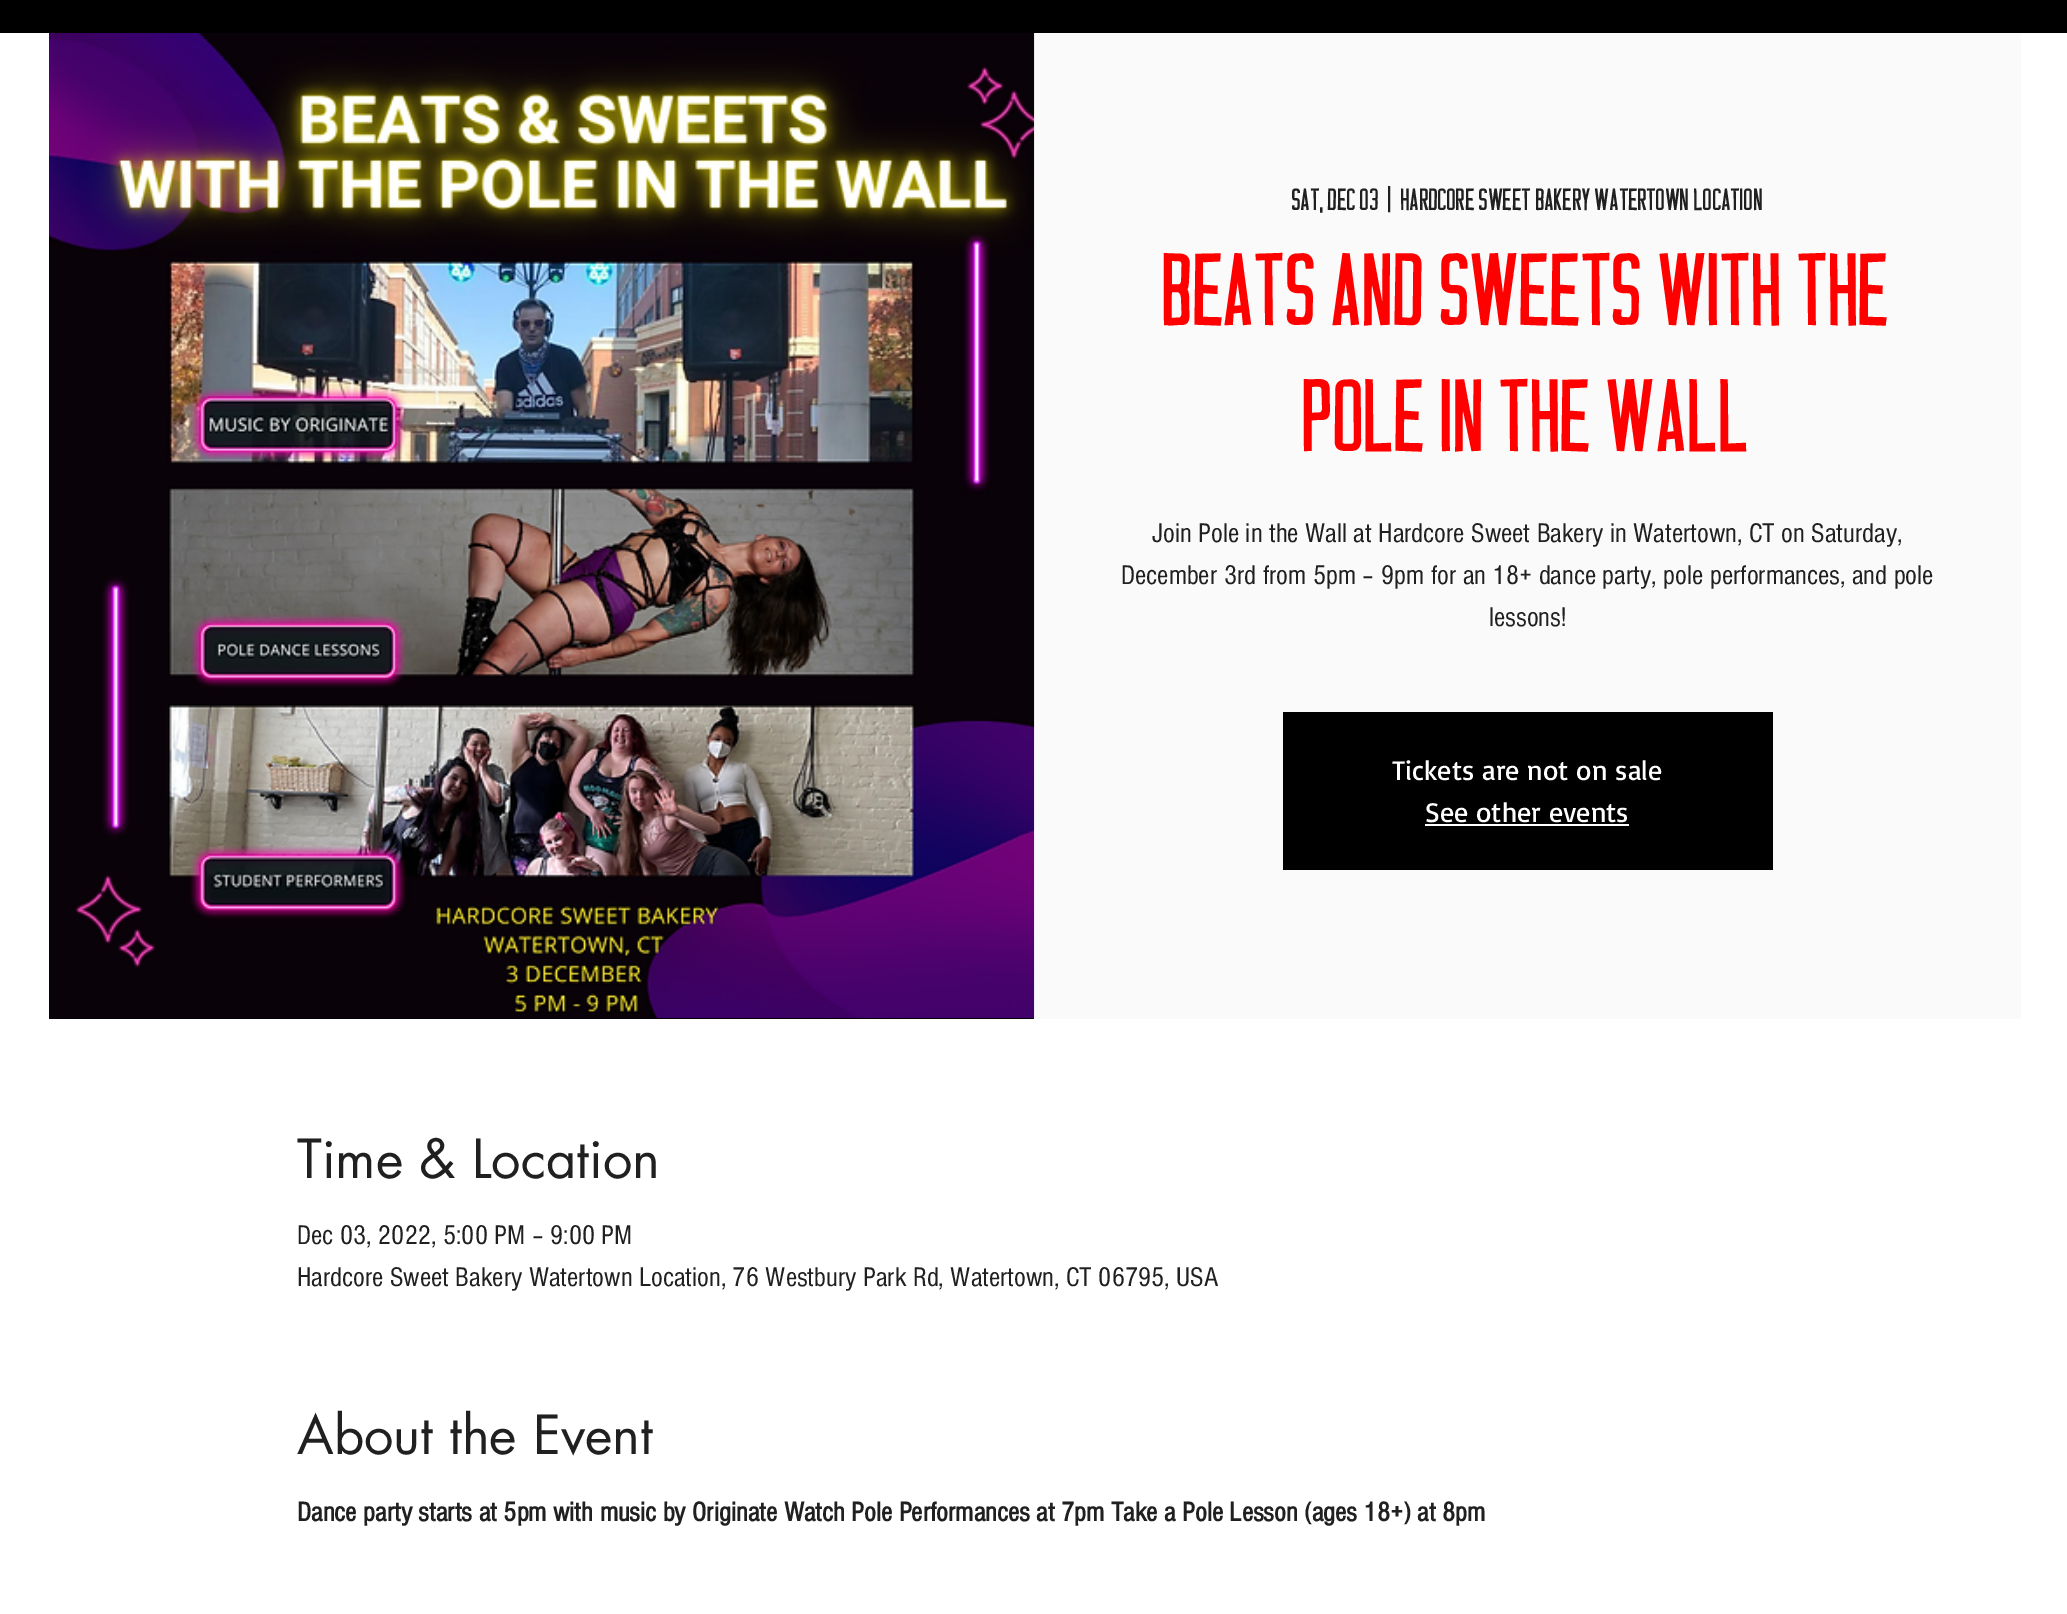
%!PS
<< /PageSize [2067 1614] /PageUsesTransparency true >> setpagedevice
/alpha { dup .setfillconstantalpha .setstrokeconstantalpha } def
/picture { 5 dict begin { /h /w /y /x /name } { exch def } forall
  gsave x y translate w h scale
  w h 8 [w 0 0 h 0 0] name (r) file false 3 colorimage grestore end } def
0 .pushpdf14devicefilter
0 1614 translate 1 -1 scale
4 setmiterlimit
0 setgray
0 0 2067 1614 rectfill
1 setgray
0 33 2067 1581 rectfill
0 setgray
49 1018 985 1 rectfill
(img1.rgb) 49 33 986 986 picture
0.1 alpha
0.835 0.8 0.831 setrgbcolor
1034 33 987 986 rectfill
/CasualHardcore-Regular [31.5 0 0 -31.5 0 0] selectfont
1 alpha
0.125 setgray
1292 210 moveto (Sat, Dec 03) show
1388 210 moveto (|) show
1401 210 moveto (Hardcore Sweet Bakery Watertown Location) show
/CasualHardcore-Regular [105 0 0 -105 0 0] selectfont
1 0 0 setrgbcolor
1164 325 moveto (Beats and Sweets with the) show
1304 451 moveto (Pole in the Wall) show
/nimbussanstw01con-Regular [28 0 0 -28 0 0] selectfont
0.125 setgray
1152 542 moveto (Join Pole in the Wall at Hardcore Sweet Bakery in Watertown, CT on Saturday,) show
1121 584 moveto (December 3rd from 5pm – 9pm for an 18+ dance party, pole performances, and pole) show
1489 626 moveto (lessons!) show
0 setgray
1283 712 490 158 rectfill
/Basic-Regular [28 0 0 -28 0 0] selectfont
1 setgray
1392 780 moveto (Tickets are not on sale) show
1425 822 moveto (See other events) show
1425 824 204 2 rectfill
/futura-Regular [52.5 0 0 -52.5 0 0] selectfont
0.125 setgray
297 1178 moveto (Time & Location) show
/nimbussanstw01con-Regular [28 0 0 -28 0 0] selectfont
297 1244 moveto (Dec 03, 2022, 5:00 PM – 9:00 PM) show
297 1286 moveto (Hardcore Sweet Bakery Watertown Location, 76 Westbury Park Rd, Watertown, CT 06795, USA) show
/futura-Regular [52.5 0 0 -52.5 0 0] selectfont
297 1454 moveto (About the Event) show
/nimbussanstw01con-Bold [28 0 0 -28 0 0] selectfont
297 1521 moveto (Dance party starts at 5pm with music by Originate Watch Pole Performances at 7pm Take a Pole Lesson \(ages 18+\) at 8pm) show
.poppdf14devicefilter showpage
